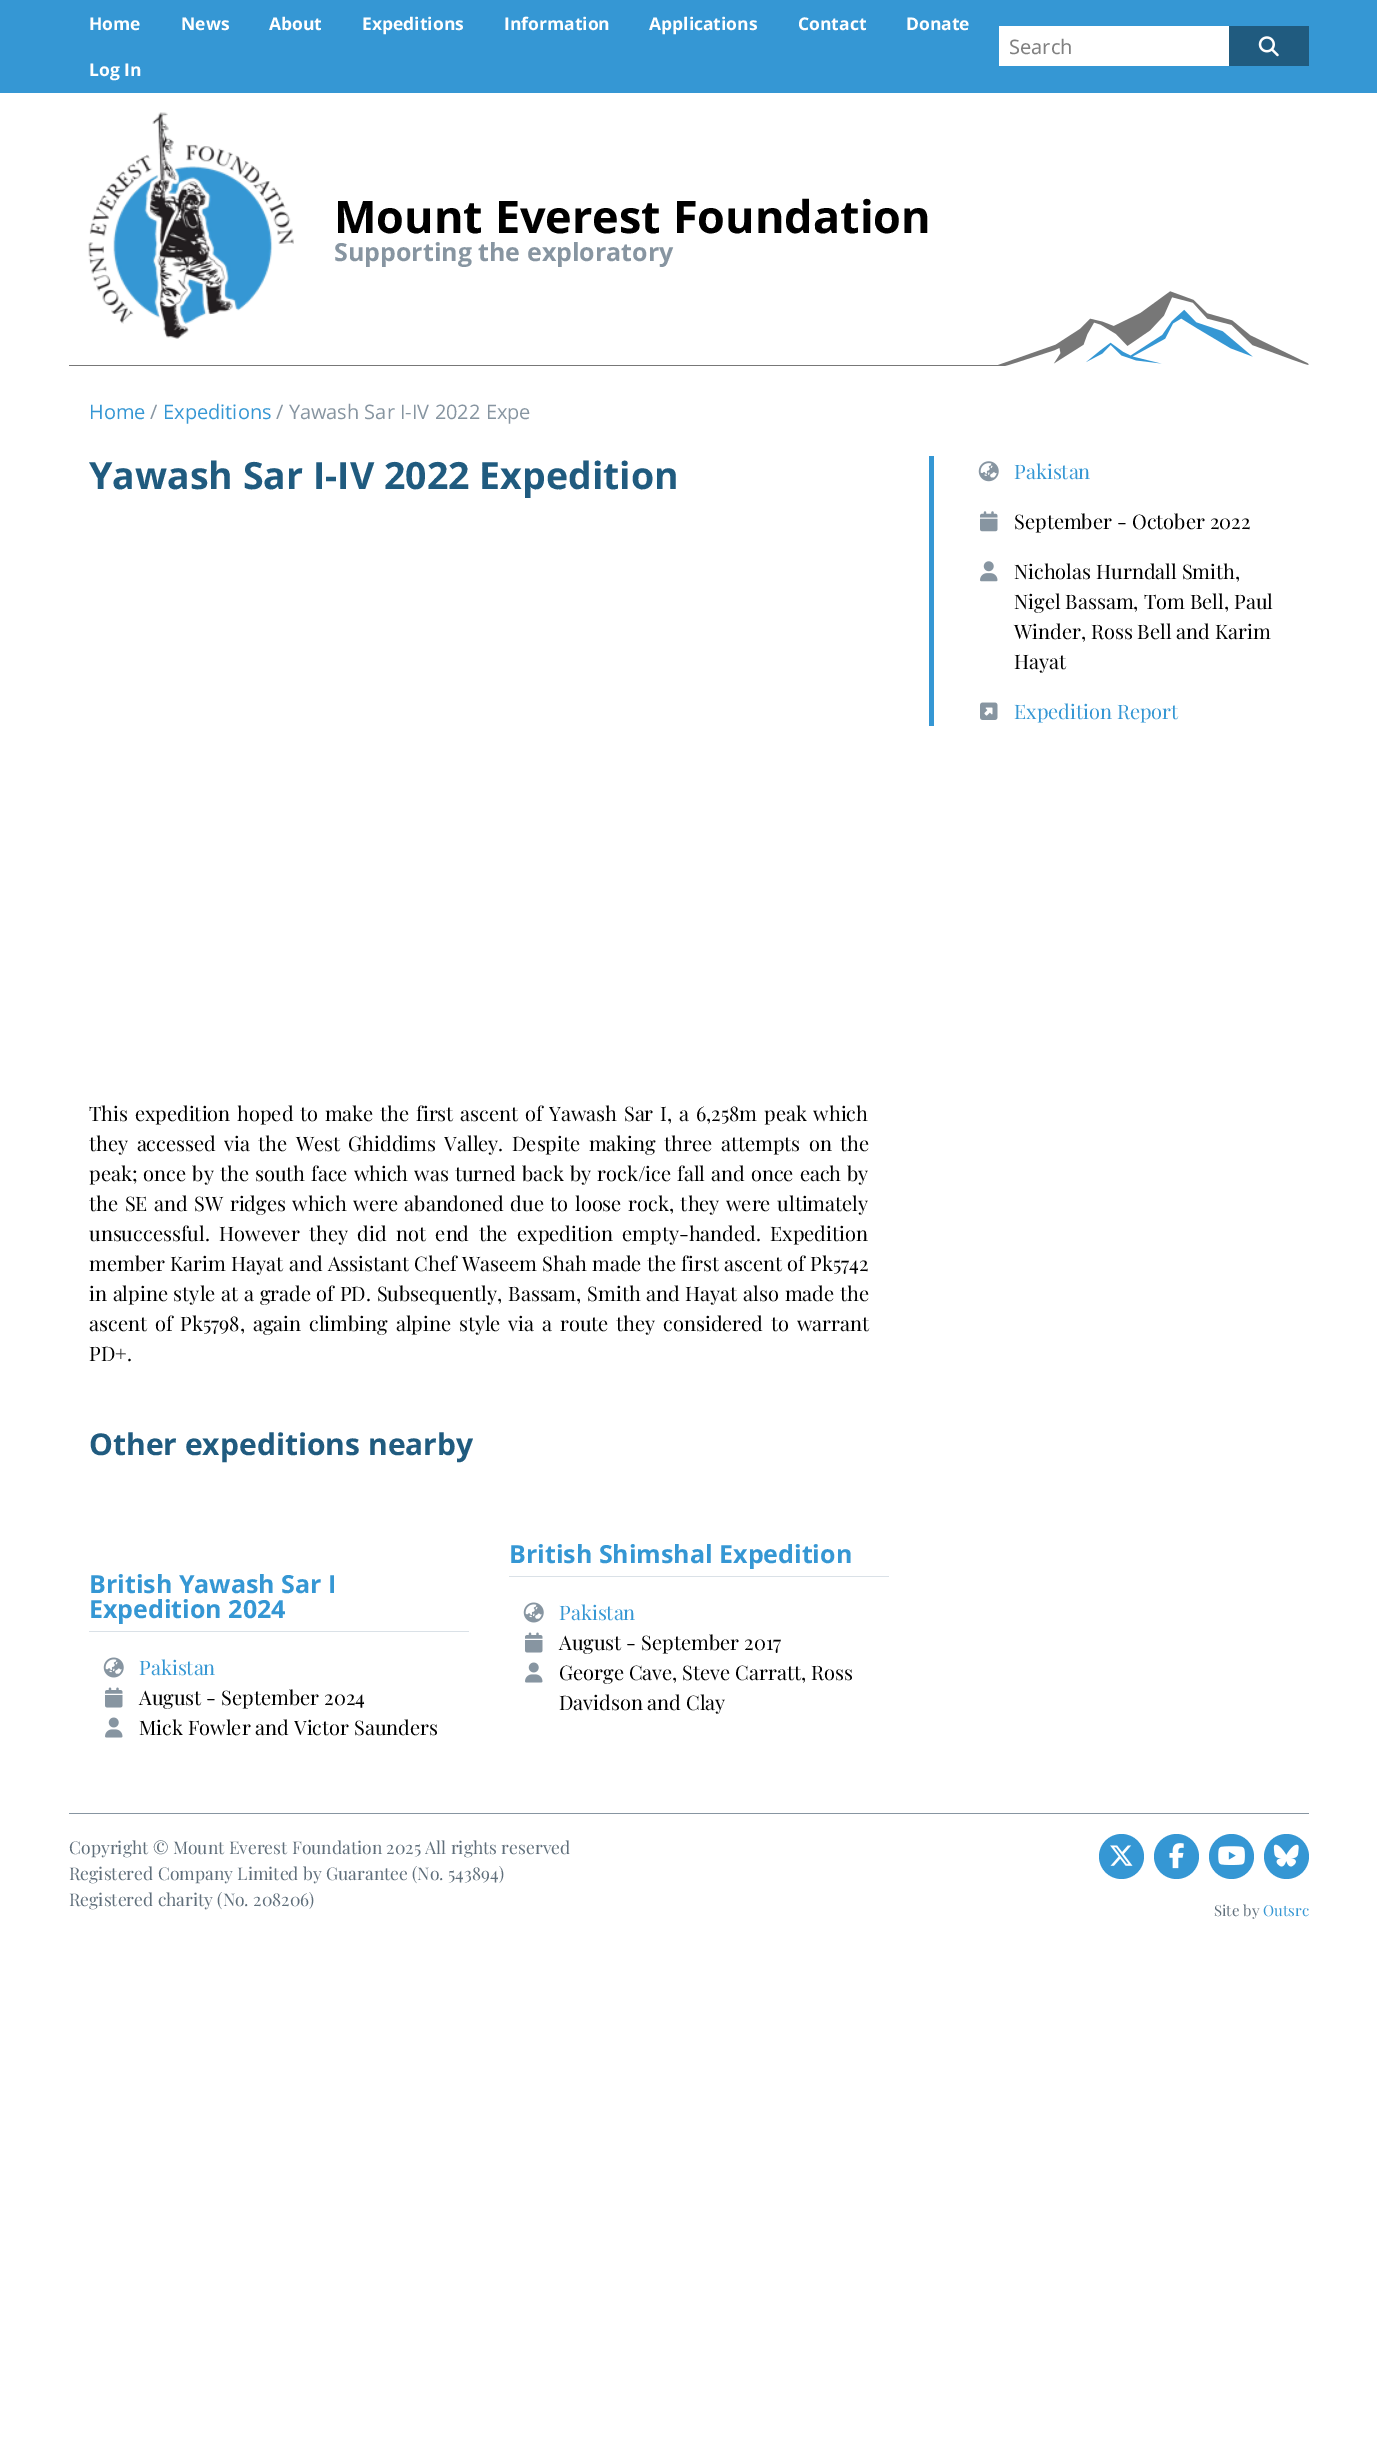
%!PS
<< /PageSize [1377 2442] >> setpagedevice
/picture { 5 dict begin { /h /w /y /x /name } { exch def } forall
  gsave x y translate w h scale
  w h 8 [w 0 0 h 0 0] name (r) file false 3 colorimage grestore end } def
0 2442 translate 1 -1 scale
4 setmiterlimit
1 setgray
0 0 1377 2442 rectfill
0.208 0.592 0.831 setrgbcolor
0 0 1377 93 rectfill
/OpenSans-Bold [17.5 0 0 -17.5 0 0] selectfont
1 setgray
89 30 moveto (Home) show
181 30 moveto (News) show
269 30 moveto (About) show
362 30 moveto (Expeditions) show
504 30 moveto (Information) show
649 30 moveto (Applications) show
798 30 moveto (Contact) show
906 30 moveto (Donate) show
89 76 moveto (Log In) show
999 26 230 40 rectfill
/NotoSans-Regular [20 0 0 -20 0 0] selectfont
0.502 setgray
1009 54 moveto (Search) show
0.125 0.357 0.498 setrgbcolor
1229 26 80 40 rectfill
(img1.rgb) 1258 36 21 21 picture
(img2.rgb) 69 291 1240 75 picture
(img3.rgb) 88 112 206 227 picture
/OpenSans-Bold [45 0 0 -45 0 0] selectfont
0 setgray
334 233 moveto (Mount Everest Foundation) show
/OpenSans-Bold [25 0 0 -25 0 0] selectfont
0.529 0.584 0.631 setrgbcolor
334 261 moveto (Supporting the exploratory) show
/OpenSans-Regular [20 0 0 -20 0 0] selectfont
0.208 0.592 0.831 setrgbcolor
89 419 moveto (Home) show
0.529 0.584 0.631 setrgbcolor
150 419 moveto (/) show
0.208 0.592 0.831 setrgbcolor
163 419 moveto (Expeditions) show
0.529 0.584 0.631 setrgbcolor
276 419 moveto (/ Yawash Sar I-IV 2022 Expe) show
/OpenSans-Bold [37.5 0 0 -37.5 0 0] selectfont
0.125 0.357 0.498 setrgbcolor
89 489 moveto (Yawash Sar I-IV 2022 Expedition) show
/PlayfairDisplay-Regular [20 0 0 -20 0 0] selectfont
0 setgray
89 1121 moveto 1.8 0 32 (This expedition hoped to make the first ascent of Yawash Sar I, a 6,258m peak which) widthshow
89 1151 moveto 3.5 0 32 (they accessed via the West Ghiddims Valley. Despite making three attempts on the) widthshow
89 1181 moveto 1.1 0 32 (peak; once by the south face which was turned back by rock/ice fall and once each by) widthshow
89 1211 moveto 1.6 0 32 (the SE and SW ridges which were abandoned due to loose rock, they were ultimately) widthshow
89 1241 moveto 4.5 0 32 (unsuccessful. However they did not end the expedition empty-handed. Expedition) widthshow
89 1271 moveto 0.4 0 32 (member Karim Hayat and Assistant Chef Waseem Shah made the first ascent of Pk5742) widthshow
89 1301 moveto 0.75 0 32 (in alpine style at a grade of PD. Subsequently, Bassam, Smith and Hayat also made the) widthshow
89 1331 moveto 2.9 0 32 (ascent of Pk5798, again climbing alpine style via a route they considered to warrant) widthshow
89 1361 moveto (PD+.) show
0.208 0.592 0.831 setrgbcolor
929 456 5 270 rectfill
(img4.rgb) 978 461 21 21 picture
1014 479 moveto (Pakistan) show
(img5.rgb) 980 511 18 21 picture
0 setgray
1014 529 moveto (September - October 2022) show
(img6.rgb) 980 561 18 21 picture
1014 579 moveto (Nicholas Hurndall Smith,) show
1014 609 moveto (Nigel Bassam, Tom Bell, Paul) show
1014 639 moveto (Winder, Ross Bell and Karim) show
1014 669 moveto (Hayat) show
(img7.rgb) 980 702 18 18 picture
0.208 0.592 0.831 setrgbcolor
1014 719 moveto (Expedition Report) show
/OpenSans-Bold [30 0 0 -30 0 0] selectfont
0.125 0.357 0.498 setrgbcolor
89 1455 moveto (Other expeditions nearby) show
0.855 0.882 0.906 setrgbcolor
89 1631 380 1 rectfill
/OpenSans-Bold [25 0 0 -25 0 0] selectfont
0.208 0.592 0.831 setrgbcolor
89 1593 moveto (British Yawash Sar I) show
89 1618 moveto (Expedition 2024) show
(img8.rgb) 103 1657 21 21 picture
/PlayfairDisplay-Regular [20 0 0 -20 0 0] selectfont
139 1675 moveto (Pakistan) show
(img9.rgb) 105 1687 18 21 picture
0 setgray
139 1705 moveto (August - September 2024) show
(img10.rgb) 105 1717 18 21 picture
139 1735 moveto (Mick Fowler and Victor Saunders) show
0.855 0.882 0.906 setrgbcolor
509 1576 380 1 rectfill
/OpenSans-Bold [25 0 0 -25 0 0] selectfont
0.208 0.592 0.831 setrgbcolor
509 1563 moveto (British Shimshal Expedition) show
(img8.rgb) 523 1602 21 21 picture
/PlayfairDisplay-Regular [20 0 0 -20 0 0] selectfont
559 1620 moveto (Pakistan) show
(img9.rgb) 525 1632 18 21 picture
0 setgray
559 1650 moveto (August - September 2017) show
(img10.rgb) 525 1662 18 21 picture
559 1680 moveto (George Cave, Steve Carratt, Ross) show
559 1710 moveto (Davidson and Clay) show
0.529 0.584 0.631 setrgbcolor
69 1813 1240 1 rectfill
/PlayfairDisplay-Regular [17.5 0 0 -17.5 0 0] selectfont
0.376 0.435 0.482 setrgbcolor
69 1854 moveto (Copyright © Mount Everest Foundation 2025 All rights reserved) show
69 1880 moveto (Registered Company Limited by Guarantee \(No. 543894\)) show
69 1906 moveto (Registered charity \(No. 208206\)) show
0.208 0.592 0.831 setrgbcolor
newpath 1121.5 1856.5 22.5 0 360 arc closepath fill
(img11.rgb) 1110 1845 23 21 picture
newpath 1176.5 1856.5 22.5 0 360 arc closepath fill
(img12.rgb) 1169 1843 15 26 picture
newpath 1231.5 1856.5 22.5 0 360 arc closepath fill
(img13.rgb) 1218 1846 27 19 picture
newpath 1286.5 1856.5 22.5 0 360 arc closepath fill
(img14.rgb) 1273 1844 26 23 picture
/PlayfairDisplay-Regular [15 0 0 -15 0 0] selectfont
0.376 0.435 0.482 setrgbcolor
1214 1916 moveto (Site by) show
0.208 0.592 0.831 setrgbcolor
1263 1916 moveto (Outsrc) show
showpage
